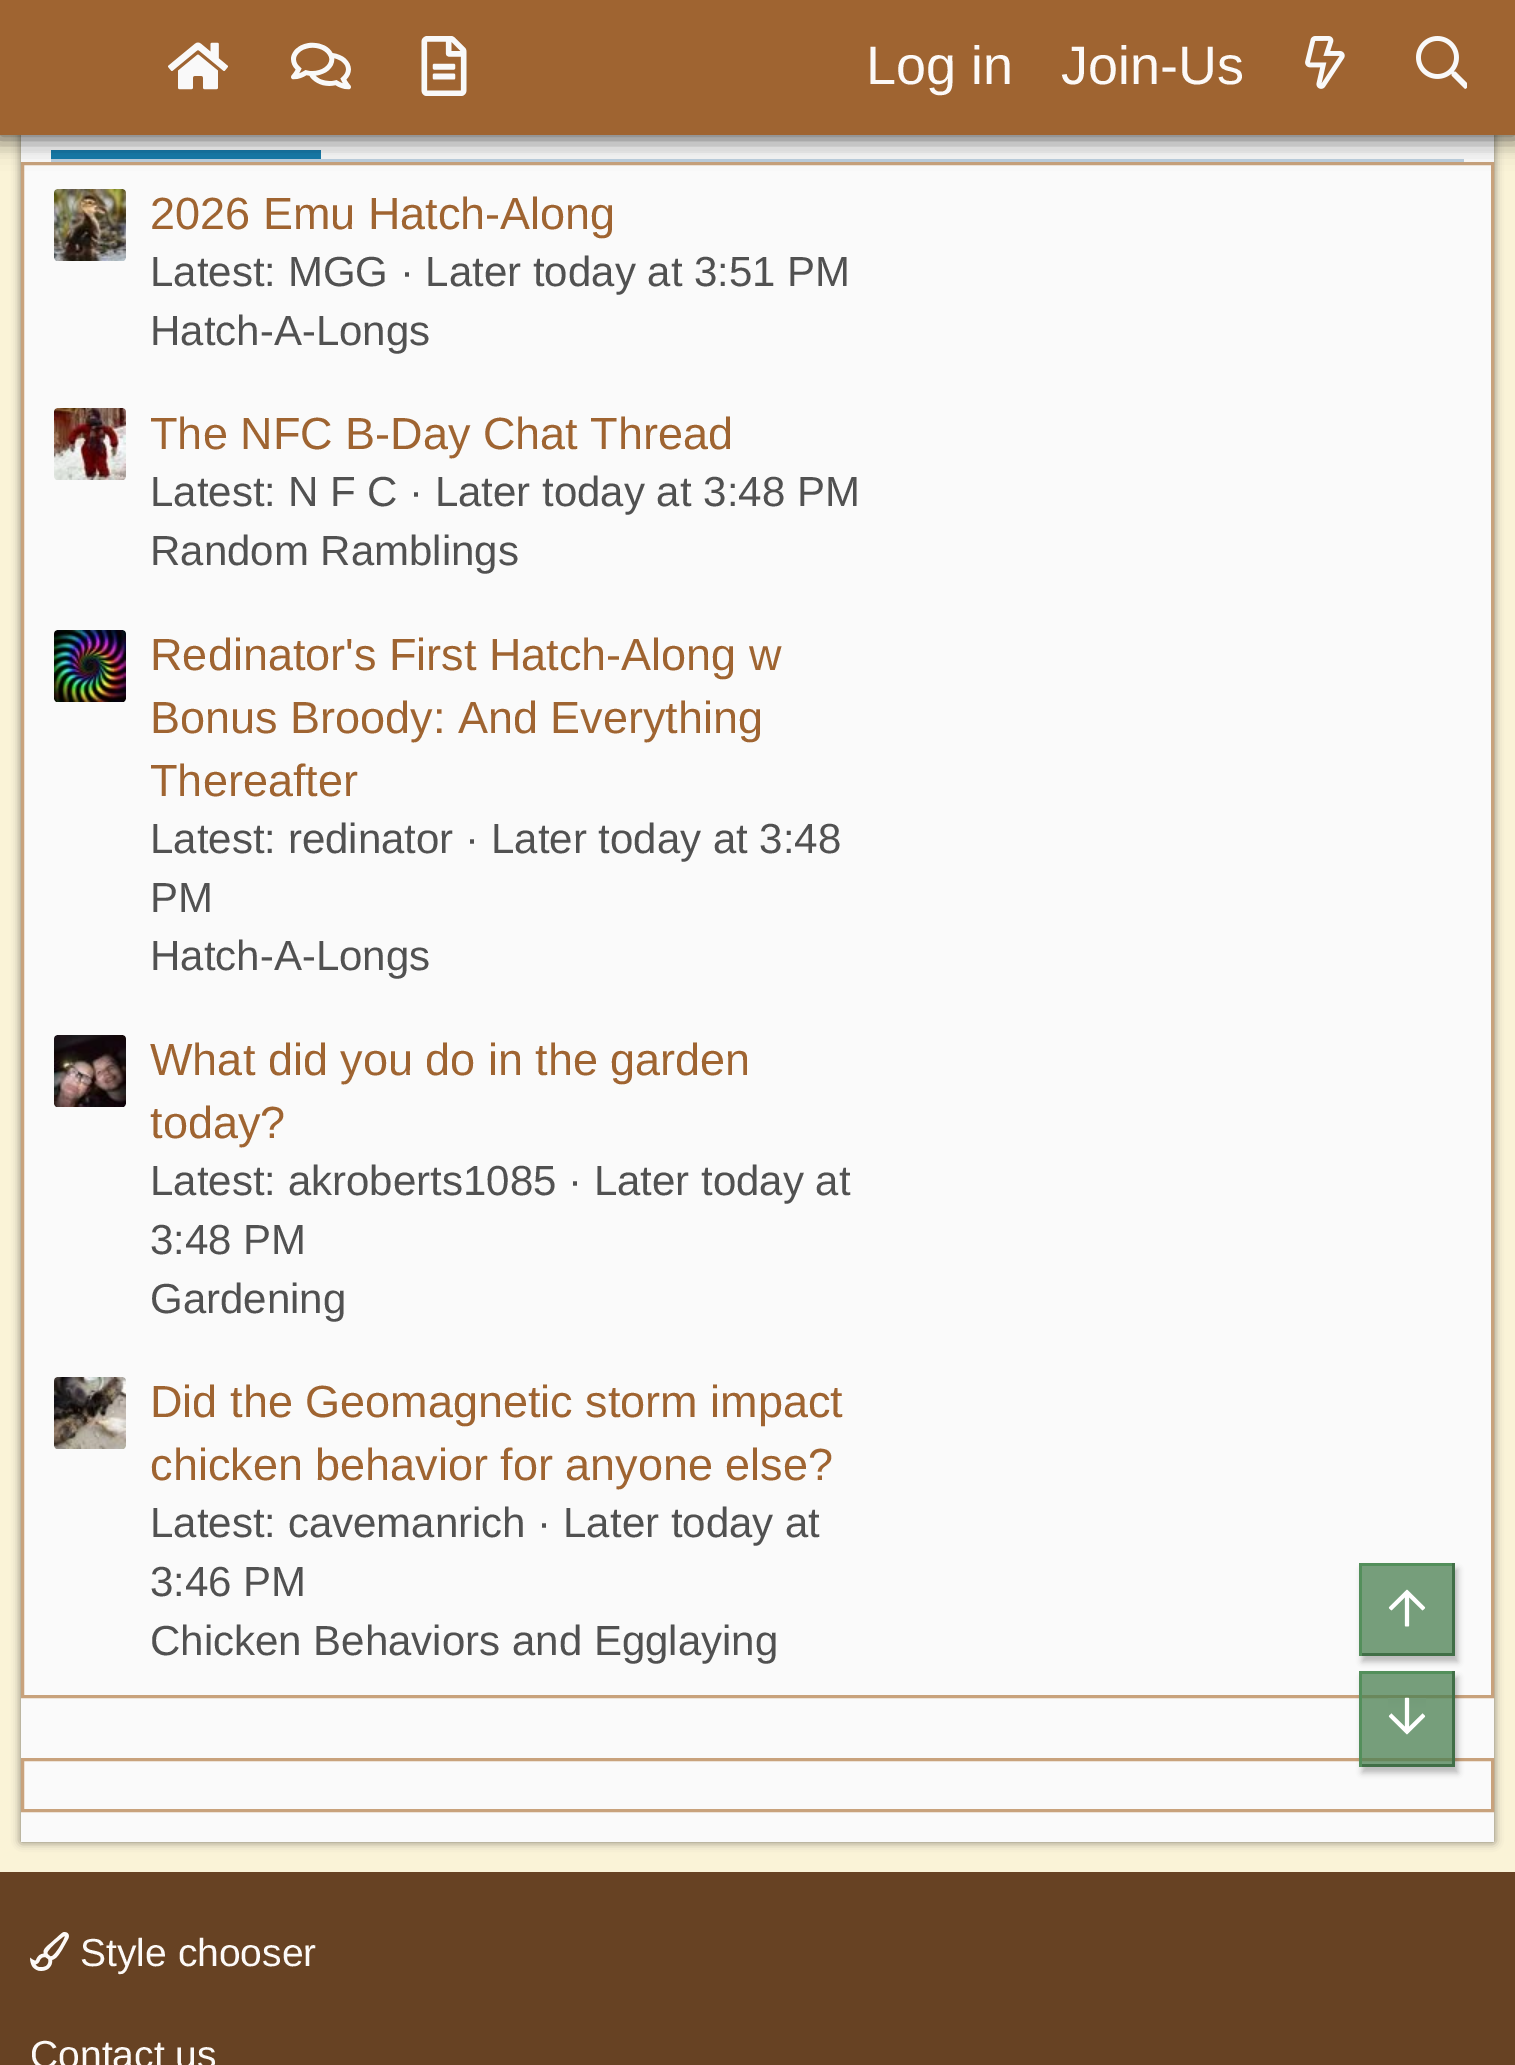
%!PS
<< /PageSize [1515 2065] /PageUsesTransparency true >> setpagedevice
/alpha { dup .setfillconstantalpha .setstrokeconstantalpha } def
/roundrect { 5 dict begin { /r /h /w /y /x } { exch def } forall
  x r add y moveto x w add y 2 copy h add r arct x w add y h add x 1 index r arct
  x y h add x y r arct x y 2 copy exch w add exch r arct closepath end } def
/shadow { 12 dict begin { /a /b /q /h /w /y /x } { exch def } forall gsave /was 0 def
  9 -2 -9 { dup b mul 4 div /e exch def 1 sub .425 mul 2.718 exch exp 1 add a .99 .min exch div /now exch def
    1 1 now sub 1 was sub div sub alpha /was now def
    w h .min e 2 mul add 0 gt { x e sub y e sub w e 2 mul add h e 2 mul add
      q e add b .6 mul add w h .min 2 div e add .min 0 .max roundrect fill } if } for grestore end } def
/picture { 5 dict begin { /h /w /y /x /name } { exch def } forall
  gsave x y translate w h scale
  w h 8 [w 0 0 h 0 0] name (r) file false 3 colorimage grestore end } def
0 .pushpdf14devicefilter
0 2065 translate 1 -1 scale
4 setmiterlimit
0.98 0.953 0.843 setrgbcolor
0 0 1515 2065 rectfill
0 setgray
21 -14 1473 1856 0 4.5 0.5 shadow
0.98 setgray
21 135 1473 1707 rectfill
0.733 0.808 0.871 setrgbcolor
51 159 1413 3 rectfill
0.09 0.482 0.667 setrgbcolor
51 150 270 9 rectfill
0.784 0.635 0.486 setrgbcolor
3 setlinewidth
22.5 163.5 1470 1533 rectstroke
0 setgray
-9 -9 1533 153 0 12 0.3 shadow
0 0 1515 135 0 9 0.5 shadow
0.624 0.392 0.192 setrgbcolor
0 0 1515 135 rectfill
(img1.rgb) 168 42 60 48 picture
(img2.rgb) 291 42 60 48 picture
(img3.rgb) 421 36 46 60 picture
/LiberationSans-Regular [54 0 0 -54 0 0] selectfont
0.988 0.976 0.969 setrgbcolor
866 84 moveto (Log in) show
1061 84 moveto (Join-Us) show
(img4.rgb) 1305 36 40 53 picture
(img5.rgb) 1416 36 51 53 picture
(img6.rgb) 54 189 72 72 picture
/LiberationSans-Regular [45 0 0 -45 0 0] selectfont
0.624 0.392 0.192 setrgbcolor
150 229 moveto (2026 Emu Hatch-Along) show
/LiberationSans-Regular [42 0 0 -42 0 0] selectfont
0.318 setgray
150 286 moveto (Latest: MGG · Later today at 3:51 PM) show
150 345 moveto (Hatch-A-Longs) show
(img7.rgb) 54 408 72 72 picture
/LiberationSans-Regular [45 0 0 -45 0 0] selectfont
0.624 0.392 0.192 setrgbcolor
150 449 moveto (The NFC B-Day Chat Thread) show
/LiberationSans-Regular [42 0 0 -42 0 0] selectfont
0.318 setgray
150 506 moveto (Latest: N F C · Later today at 3:48 PM) show
150 565 moveto (Random Ramblings) show
(img8.rgb) 54 630 72 72 picture
/LiberationSans-Regular [45 0 0 -45 0 0] selectfont
0.624 0.392 0.192 setrgbcolor
150 670 moveto (Redinator's First Hatch-Along w) show
150 733 moveto (Bonus Broody: And Everything) show
150 796 moveto (Thereafter) show
/LiberationSans-Regular [42 0 0 -42 0 0] selectfont
0.318 setgray
150 853 moveto (Latest: redinator · Later today at 3:48) show
150 912 moveto (PM) show
150 970 moveto (Hatch-A-Longs) show
(img9.rgb) 54 1035 72 72 picture
/LiberationSans-Regular [45 0 0 -45 0 0] selectfont
0.624 0.392 0.192 setrgbcolor
150 1075 moveto (What did you do in the garden) show
150 1138 moveto (today?) show
/LiberationSans-Regular [42 0 0 -42 0 0] selectfont
0.318 setgray
150 1195 moveto (Latest: akroberts1085 · Later today at) show
150 1254 moveto (3:48 PM) show
150 1313 moveto (Gardening) show
(img10.rgb) 54 1377 72 72 picture
/LiberationSans-Regular [45 0 0 -45 0 0] selectfont
0.624 0.392 0.192 setrgbcolor
150 1417 moveto (Did the Geomagnetic storm impact) show
150 1480 moveto (chicken behavior for anyone else?) show
/LiberationSans-Regular [42 0 0 -42 0 0] selectfont
0.318 setgray
150 1537 moveto (Latest: cavemanrich · Later today at) show
150 1596 moveto (3:46 PM) show
150 1655 moveto (Chicken Behaviors and Egglaying) show
0.784 0.635 0.486 setrgbcolor
22.5 1759.5 1470 51 rectstroke
0.404 0.259 0.137 setrgbcolor
0 1872 1515 193 rectfill
(img11.rgb) 30 1932 39 39 picture
/LiberationSans-Regular [39 0 0 -39 0 0] selectfont
0.988 0.976 0.969 setrgbcolor
80 1966 moveto (Style chooser) show
30 2068 moveto (Contact us) show
0 setgray
1362 1569 96 93 0 3 0.25 shadow
0.463 0.62 0.482 setrgbcolor
1362 1566 90 87 rectfill
0.325 0.561 0.357 setrgbcolor
1359 1563 96 3 rectfill
0.255 0.435 0.278 setrgbcolor
1452 1563 3 93 rectfill
1359 1653 96 3 rectfill
0.325 0.561 0.357 setrgbcolor
1359 1563 3 93 rectfill
(img12.rgb) 1388 1589 38 38 picture
gsave
newpath 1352 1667 moveto 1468 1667 lineto 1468 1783 lineto 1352 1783 lineto closepath 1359 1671 moveto 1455 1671 lineto 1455 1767 lineto 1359 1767 lineto closepath eoclip newpath
0 setgray
1362 1677 96 96 0 3 0.25 shadow
grestore
0.75 alpha
0.29 0.498 0.318 setrgbcolor
1362 1674 90 90 rectfill
1 alpha
0.325 0.561 0.357 setrgbcolor
1359 1671 96 3 rectfill
0.255 0.435 0.278 setrgbcolor
1452 1671 3 96 rectfill
1359 1764 96 3 rectfill
0.325 0.561 0.357 setrgbcolor
1359 1671 3 96 rectfill
(img13.rgb) 1388 1697 38 38 picture
.poppdf14devicefilter showpage
